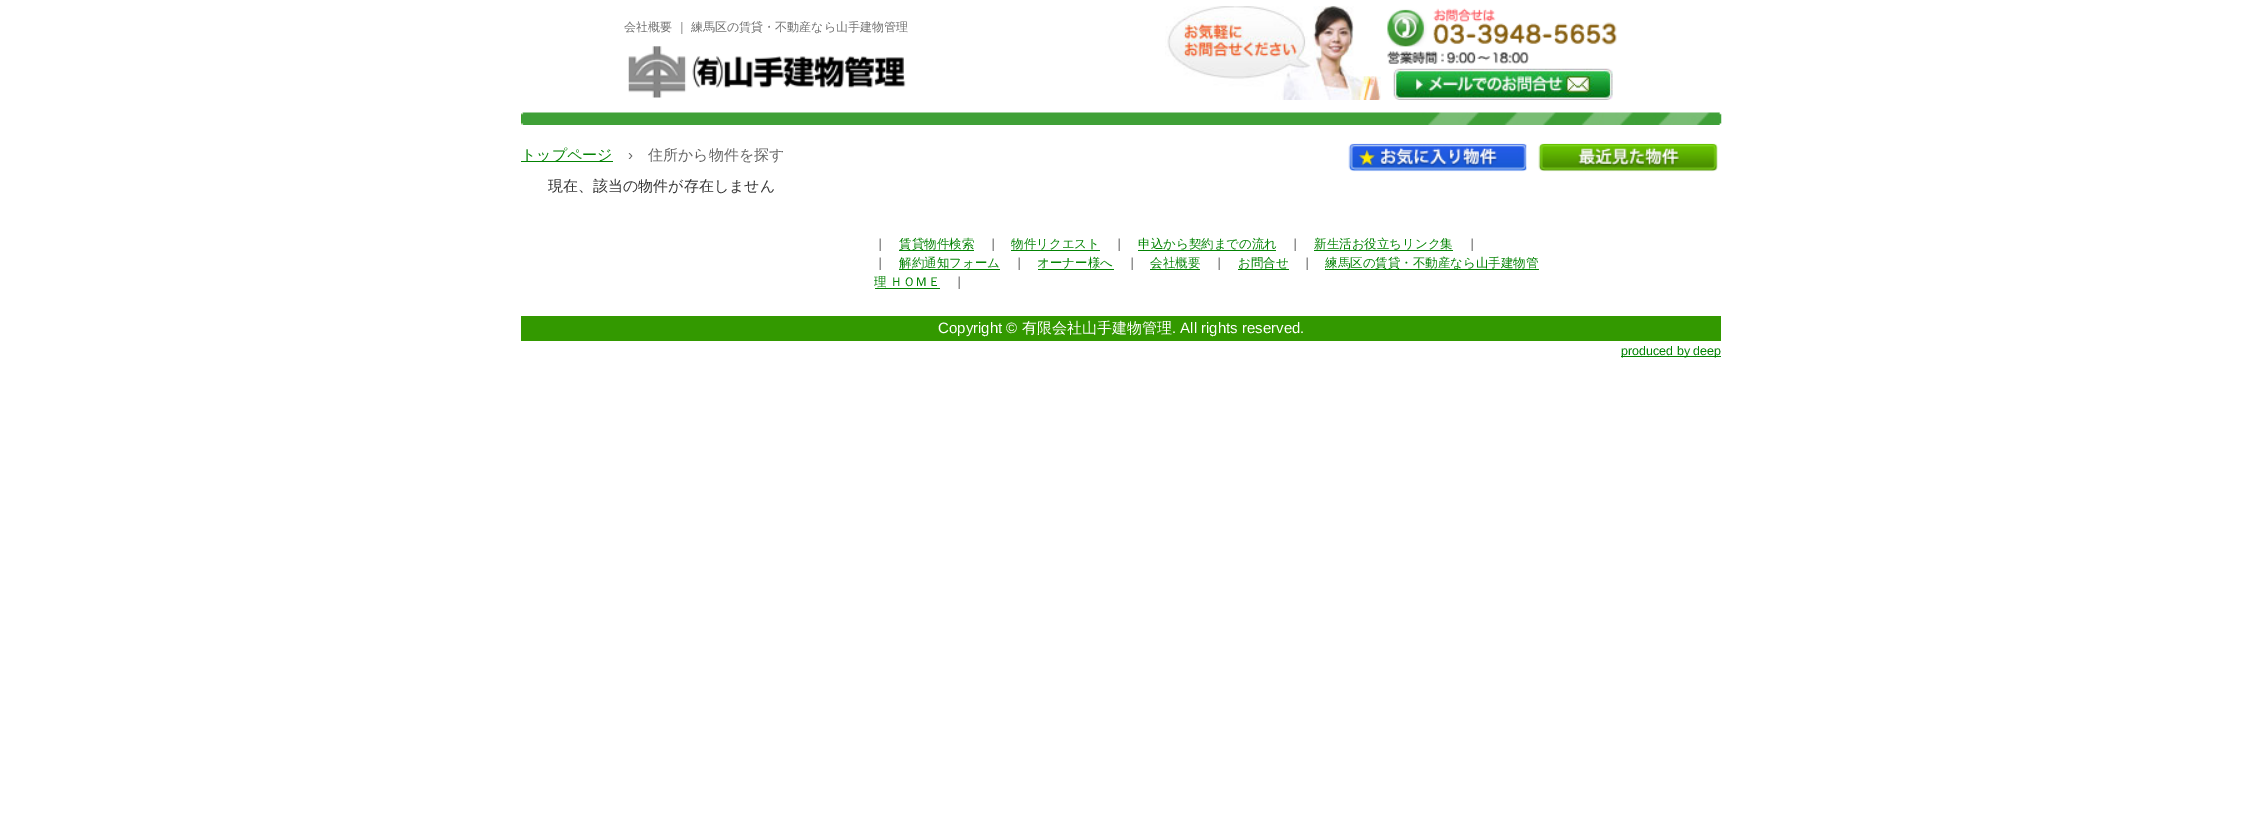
%!PS
<< /PageSize [2242 831] >> setpagedevice
/picture { 5 dict begin { /h /w /y /x /name } { exch def } forall
  gsave x y translate w h scale
  w h 8 [w 0 0 h 0 0] name (r) file false 3 colorimage grestore end } def
0 831 translate 1 -1 scale
4 setmiterlimit
1 setgray
0 0 2242 831 rectfill
/WenQuanYiZenHei-Medium [12 0 0 -12 0 0] selectfont
0.439 setgray
624 31 moveto (会社概要 ｜ 練馬区の賃貸・不動産なら山手建物管理) show
(img1.rgb) 1165 6 216 94 picture
(img2.rgb) 1387 8 230 56 picture
(img3.rgb) 628 46 278 52 picture
(img4.rgb) 1393 68 220 32 picture
(img5.rgb) 521 112 1201 13 picture
0.012 0.514 0.012 setrgbcolor
521 161 92 1 rectfill
/WenQuanYiZenHei-Medium [15 0 0 -15 0 0] selectfont
521 160 moveto (トップページ) show
/LiberationSans-Regular [15 0 0 -15 0 0] selectfont
0.4 setgray
628 160 moveto (›) show
/WenQuanYiZenHei-Medium [15 0 0 -15 0 0] selectfont
648 160 moveto (住所から物件を探す) show
(img6.rgb) 1348 143 179 29 picture
(img7.rgb) 1538 143 180 29 picture
gsave
548 175 1147 23 rectclip
0.2 setgray
548 191 moveto (現在、該当の物件が存在しません) show
grestore
/WenQuanYiZenHei-Medium [12.5 0 0 -12.5 0 0] selectfont
0.2 setgray
874 248 moveto (｜) show
0.012 0.514 0.012 setrgbcolor
899 250 75 1 rectfill
899 248 moveto (賃貸物件検索) show
0.2 setgray
987 248 moveto (｜) show
0.012 0.514 0.012 setrgbcolor
1011 248 moveto (物件リクエスト) show
1011 250 89 1 rectfill
0.2 setgray
1113 248 moveto (｜) show
0.012 0.514 0.012 setrgbcolor
1138 248 moveto (申込から契約までの流れ) show
1138 250 138 1 rectfill
0.2 setgray
1289 248 moveto (｜) show
0.012 0.514 0.012 setrgbcolor
1314 248 moveto (新生活お役立ちリンク集) show
1314 250 139 1 rectfill
0.2 setgray
1466 248 moveto (｜) show
874 267 moveto (｜) show
0.012 0.514 0.012 setrgbcolor
899 267 moveto (解約通知フォーム) show
899 269 101 1 rectfill
0.2 setgray
1013 267 moveto (｜) show
0.012 0.514 0.012 setrgbcolor
1037 267 moveto (オーナー様へ) show
1038 269 76 1 rectfill
0.2 setgray
1126 267 moveto (｜) show
0.012 0.514 0.012 setrgbcolor
1150 267 moveto (会社概要) show
1150 269 50 1 rectfill
0.2 setgray
1213 267 moveto (｜) show
0.012 0.514 0.012 setrgbcolor
1238 267 moveto (お問合せ) show
1238 269 51 1 rectfill
0.2 setgray
1301 267 moveto (｜) show
0.012 0.514 0.012 setrgbcolor
1325 269 214 1 rectfill
1325 267 moveto (練馬区の賃貸・不動産なら山手建物管) show
874 286 moveto (理 ＨＯＭＥ) show
875 288 65 1 rectfill
0.2 setgray
953 286 moveto (｜) show
0.2 0.6 0 setrgbcolor
521 316 1200 25 rectfill
/LiberationSans-Regular [15 0 0 -15 0 0] selectfont
1 setgray
938 333 moveto (Copyright ©) show
/WenQuanYiZenHei-Medium [15 0 0 -15 0 0] selectfont
1022 333 moveto (有限会社山手建物管理) show
/LiberationSans-Regular [15 0 0 -15 0 0] selectfont
1172 333 moveto (. All rights reserved.) show
0.012 0.514 0.012 setrgbcolor
1621 356 100 1 rectfill
/LiberationSans-Regular [12.5 0 0 -12.5 0 0] selectfont
1621 355 moveto (produced by deep) show
showpage
